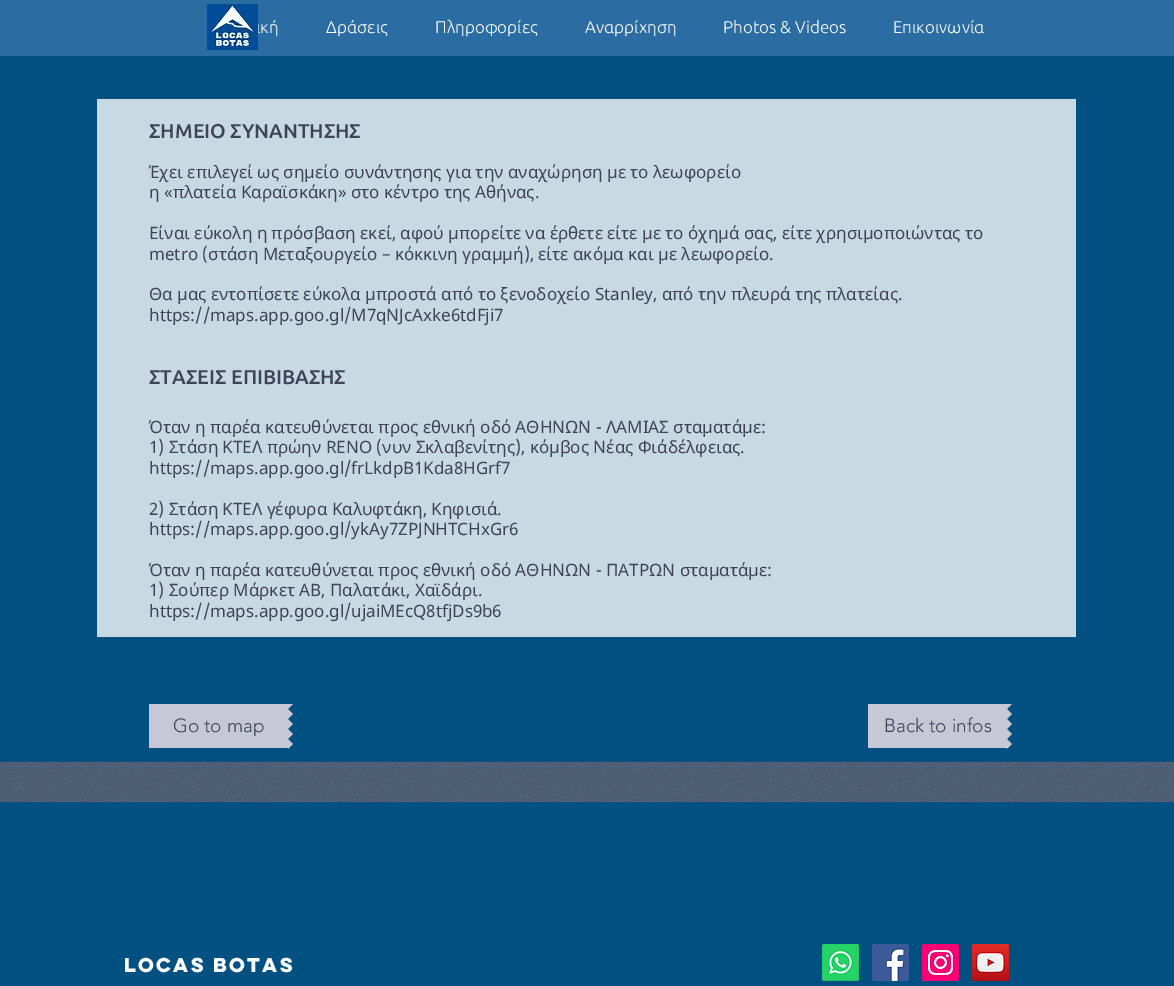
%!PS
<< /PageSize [1174 986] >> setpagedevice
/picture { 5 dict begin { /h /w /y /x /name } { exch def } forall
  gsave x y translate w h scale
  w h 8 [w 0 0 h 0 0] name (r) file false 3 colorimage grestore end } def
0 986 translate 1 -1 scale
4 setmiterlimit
0 0.314 0.51 setrgbcolor
0 0 1174 986 rectfill
0.169 0.424 0.639 setrgbcolor
0 0 1174 56 rectfill
/Ubuntu-Light [17 0 0 -17 0 0] selectfont
1 setgray
256 33 moveto (ική) show
(img1.rgb) 207 4 51 46 picture
326 33 moveto (Δράσεις) show
435 33 moveto (Πληροφορίες) show
585 33 moveto (Αναρρίχηση) show
723 33 moveto (Photos & Videos) show
893 33 moveto (Επικοινωνία) show
0.78 0.851 0.89 setrgbcolor
97 99 979 538 rectfill
/Ubuntu-Medium [20 0 0 -20 0 0] selectfont
0.247 0.263 0.349 setrgbcolor
149 138 moveto (ΣΗΜΕΙΟ ΣΥΝΑΝΤΗΣΗΣ) show
/NotoSans-Regular [17 0 0 -17 0 0] selectfont
149 178 moveto (Έχει επιλεγεί ως σημείο συνάντησης για την αναχώρηση με το λεωφορείο) show
149 198 moveto (η «πλατεία Καραϊσκάκη» στο κέντρο της Αθήνας.) show
149 239 moveto (Είναι εύκολη η πρόσβαση εκεί, αφού μπορείτε να έρθετε είτε με το όχημά σας, είτε χρησιμοποιώντας το) show
149 260 moveto (metro \(στάση Μεταξουργείο – κόκκινη γραμμή\), είτε ακόμα και με λεωφορείο.) show
149 300 moveto (Θα μας εντοπίσετε εύκολα μπροστά από το ξενοδοχείο Stanley, από την πλευρά της πλατείας.) show
149 321 moveto (https://maps.app.goo.gl/M7qNJcAxke6tdFji7) show
/Ubuntu-Medium [20 0 0 -20 0 0] selectfont
149 384 moveto (ΣΤΑΣΕΙΣ ΕΠΙΒΙΒΑΣΗΣ) show
/NotoSans-Regular [17 0 0 -17 0 0] selectfont
149 433 moveto (Όταν η παρέα κατευθύνεται προς εθνική οδό ΑΘΗΝΩΝ - ΛΑΜΙΑΣ σταματάμε:) show
149 453 moveto (1\) Στάση ΚΤΕΛ πρώην RENO \(νυν Σκλαβενίτης\), κόμβος Νέας Φιάδέλφειας.) show
149 474 moveto (https://maps.app.goo.gl/frLkdpB1Kda8HGrf7) show
149 515 moveto (2\) Στάση ΚΤΕΛ γέφυρα Καλυφτάκη, Κηφισιά.) show
149 535 moveto (https://maps.app.goo.gl/ykAy7ZPJNHTCHxGr6) show
149 576 moveto (Όταν η παρέα κατευθύνεται προς εθνική οδό ΑΘΗΝΩΝ - ΠΑΤΡΩΝ σταματάμε:) show
149 596 moveto (1\) Σούπερ Μάρκετ ΑΒ, Παλατάκι, Χαϊδάρι.) show
149 617 moveto (https://maps.app.goo.gl/ujaiMEcQ8tfjDs9b6) show
0.776 0.784 0.835 setrgbcolor
149 704 139 44 rectfill
/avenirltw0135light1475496-Light [19 0 0 -19 0 0] selectfont
0.247 0.263 0.349 setrgbcolor
173 732 moveto (Go to map) show
gsave
288 704 5 44 rectclip
0.776 0.784 0.835 setrgbcolor
newpath 288 709 moveto 288 699 lineto 293 704 lineto closepath fill
grestore
0.776 0.784 0.835 setrgbcolor
newpath 288 719 moveto 288 709 lineto 293 714 lineto closepath 288 729 moveto 288 719 lineto 293 724 lineto closepath 288 739 moveto 288 729 lineto 293 734 lineto closepath 288 749 moveto 288 739 lineto 293 744 lineto closepath fill
868 704 139 44 rectfill
0.247 0.263 0.349 setrgbcolor
884 732 moveto (Back to infos) show
gsave
1007 704 5 44 rectclip
0.776 0.784 0.835 setrgbcolor
newpath 1007 709 moveto 1007 699 lineto 1012 704 lineto closepath fill
grestore
0.776 0.784 0.835 setrgbcolor
newpath 1007 719 moveto 1007 709 lineto 1012 714 lineto closepath 1007 729 moveto 1007 719 lineto 1012 724 lineto closepath 1007 739 moveto 1007 729 lineto 1012 734 lineto closepath 1007 749 moveto 1007 739 lineto 1012 744 lineto closepath fill
0.306 0.376 0.471 setrgbcolor
0 762 1174 40 rectfill
(img2.rgb) 0 762 1174 40 picture
/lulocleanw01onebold-Bold [18 0 0 -18 0 0] selectfont
1 setgray
124 972 moveto -1.75 0 (Locas Botas) ashow
(img3.rgb) 822 944 37 37 picture
(img4.rgb) 872 944 37 37 picture
(img5.rgb) 922 944 37 37 picture
(img6.rgb) 972 944 37 37 picture
showpage
